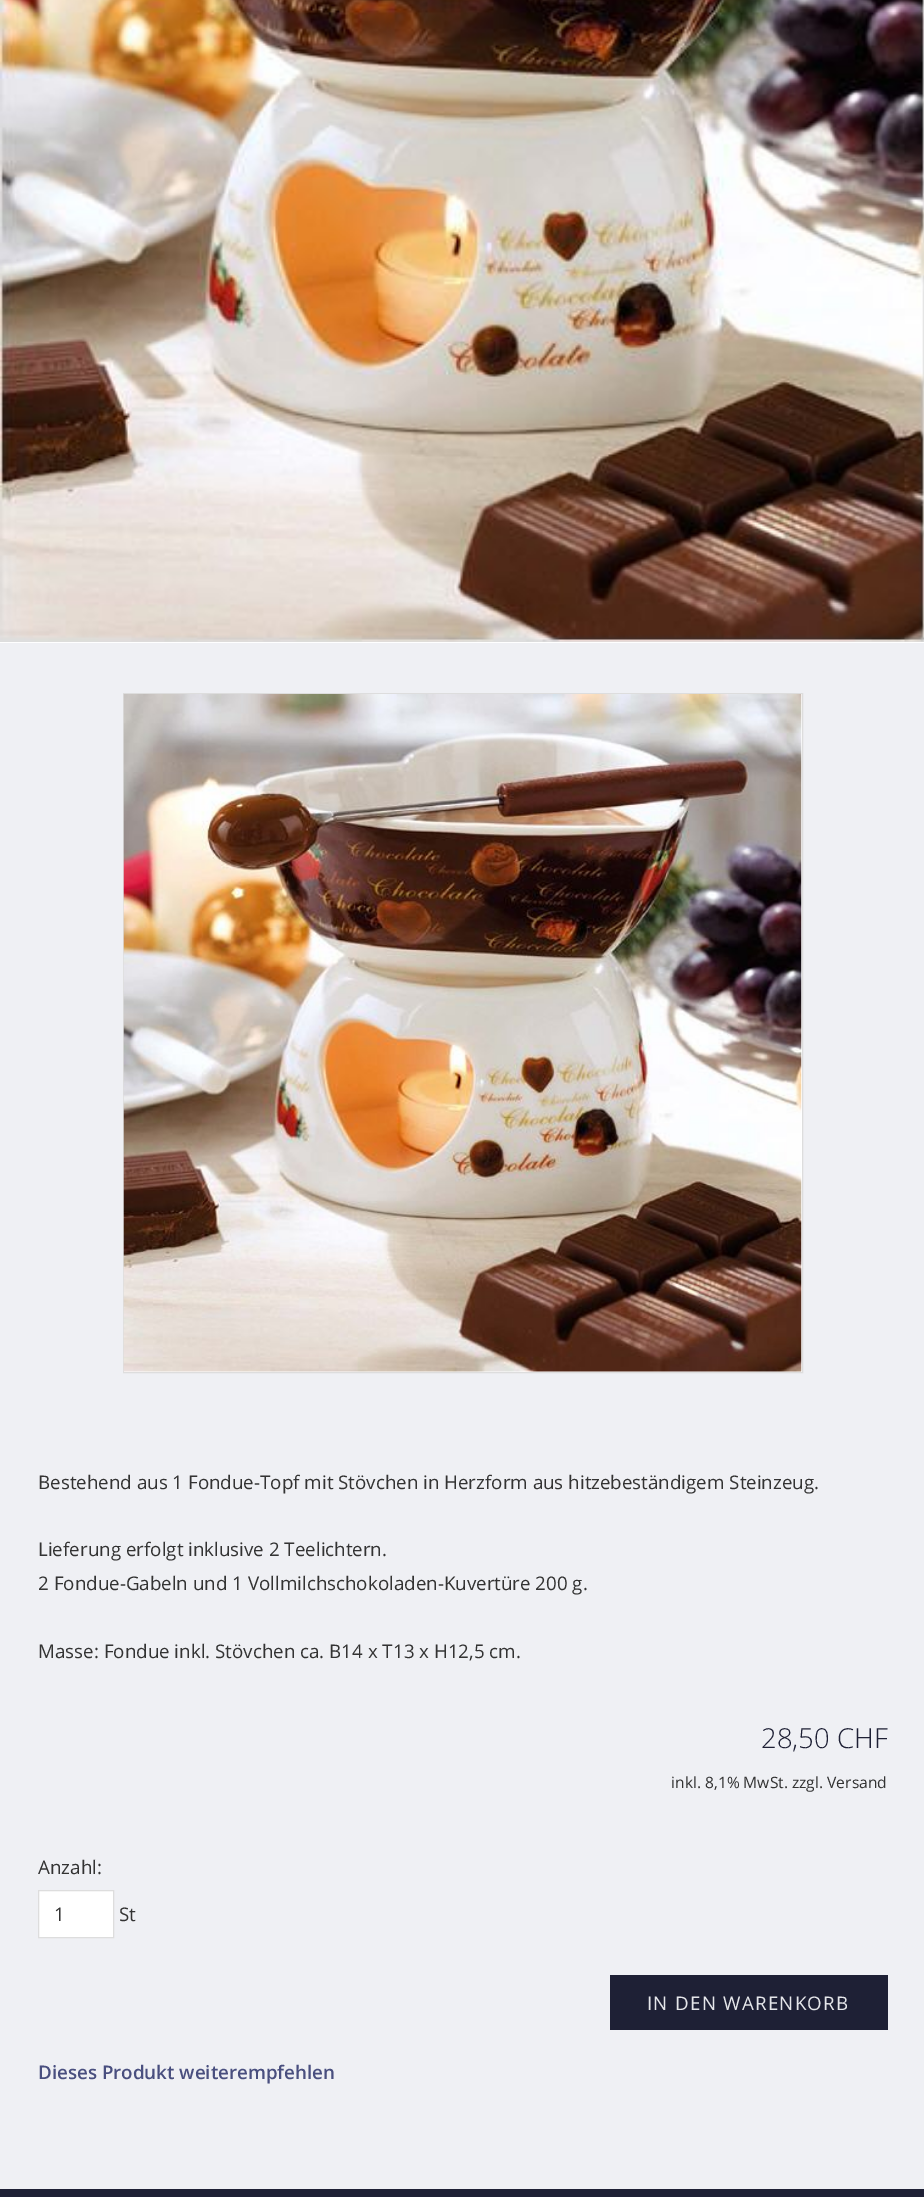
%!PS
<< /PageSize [924 2197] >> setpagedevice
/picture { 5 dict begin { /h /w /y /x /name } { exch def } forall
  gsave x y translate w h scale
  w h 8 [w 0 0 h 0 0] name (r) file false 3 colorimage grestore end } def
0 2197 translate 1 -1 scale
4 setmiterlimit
0.118 0.125 0.208 setrgbcolor
0 0 924 2197 rectfill
0.937 0.941 0.957 setrgbcolor
0 643 924 1546 rectfill
1 setgray
0 642 924 1 rectfill
0.867 setgray
0 641 924 1 rectfill
(img1.rgb) 0 0 924 642 picture
1 setgray
newpath 123.5 693.5 moveto 802.5 693.5 lineto 802.5 1372.5 lineto 123.5 1372.5 lineto closepath gsave fill grestore
0.867 setgray
stroke
(img2.rgb) 123 694 679 678 picture
/OpenSans-Regular [18.75 0 0 -18.75 0 0] selectfont
0.2 setgray
38 1489 moveto (Bestehend aus 1 Fondue-Topf mit Stövchen in Herzform aus hitzebeständigem Steinzeug.) show
38 1556 moveto (Lieferung erfolgt inklusive 2 Teelichtern.) show
38 1590 moveto (2 Fondue-Gabeln und 1 Vollmilchschokoladen-Kuvertüre 200 g.) show
38 1658 moveto (Masse: Fondue inkl. Stövchen ca. B14 x T13 x H12,5 cm.) show
/OpenSans-Light [27.5 0 0 -27.5 0 0] selectfont
0.118 0.125 0.208 setrgbcolor
761 1748 moveto (28,50 CHF) show
/OpenSans-Regular [15.6 0 0 -15.6 0 0] selectfont
0.2 setgray
671 1788 moveto (inkl. 8,1% MwSt. zzgl. Versand) show
/OpenSans-Regular [18.75 0 0 -18.75 0 0] selectfont
38 1874 moveto (Anzahl:) show
1 setgray
newpath 38.5 1890.5 moveto 113.5 1890.5 lineto 113.5 1937.5 lineto 38.5 1937.5 lineto closepath gsave fill grestore
0.867 setgray
stroke
0.2 setgray
54 1921 moveto (1) show
119 1921 moveto (St) show
0.118 0.125 0.208 setrgbcolor
610 1975 278 55 rectfill
0.898 0.902 0.918 setrgbcolor
647 2010 moveto 1.25 0 (IN DEN WARENKORB) ashow
/OpenSans-SemiBold [18.75 0 0 -18.75 0 0] selectfont
0.286 0.31 0.498 setrgbcolor
38 2079 moveto (Dieses Produkt weiterempfehlen) show
showpage
